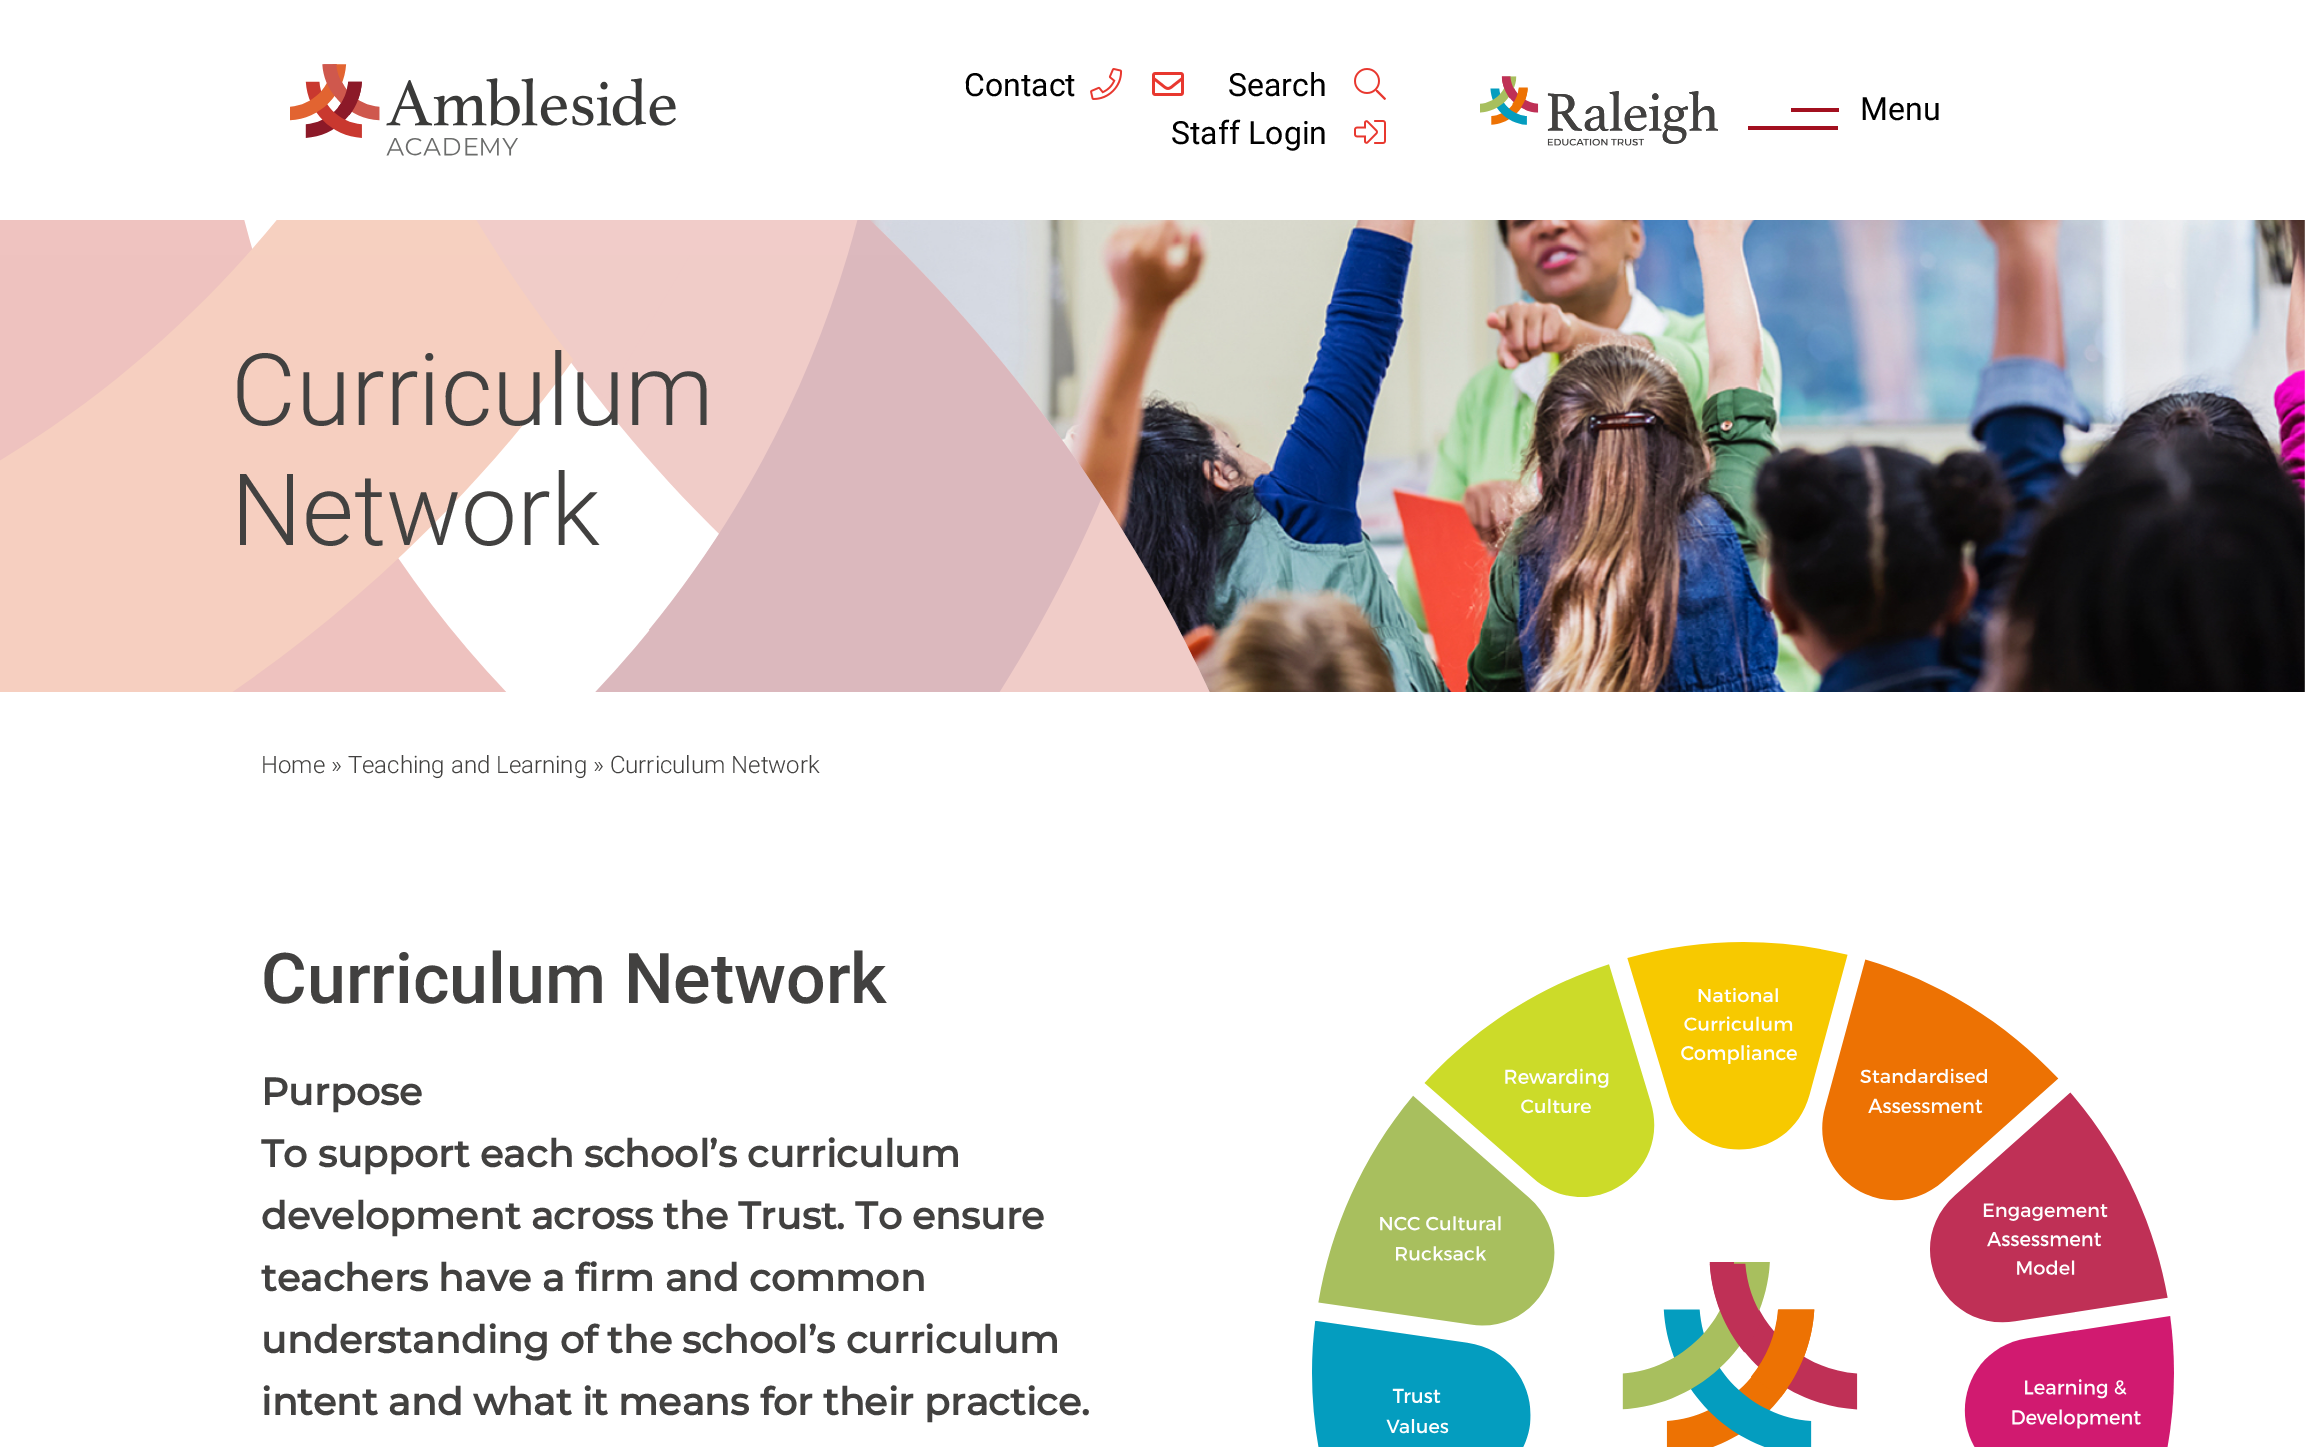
%!PS
<< /PageSize [2305 1447] >> setpagedevice
/picture { 5 dict begin { /h /w /y /x /name } { exch def } forall
  gsave x y translate w h scale
  w h 8 [w 0 0 h 0 0] name (r) file false 3 colorimage grestore end } def
0 1447 translate 1 -1 scale
4 setmiterlimit
1 setgray
0 0 2305 1447 rectfill
(img1.rgb) 290 64 386 92 picture
/Roboto-Regular [32 0 0 -32 0 0] selectfont
0 setgray
964 96 moveto (Contact) show
(img2.rgb) 1090 68 33 32 picture
(img3.rgb) 1152 72 32 24 picture
1228 96 moveto (Search) show
(img4.rgb) 1354 68 32 32 picture
1171 144 moveto (Staff Login) show
(img5.rgb) 1354 120 32 24 picture
(img6.rgb) 1480 76 238 70 picture
0.635 0.063 0.122 setrgbcolor
1791 108 48 4 rectfill
1748 126 90 4 rectfill
0 setgray
1860 120 moveto (Menu) show
(img7.rgb) 870 220 1435 472 picture
(img8.rgb) 0 220 1210 472 picture
/Roboto-Light [100 0 0 -100 0 0] selectfont
0.259 0.255 0.251 setrgbcolor
231 425 moveto (Curriculum) show
231 545 moveto (Network) show
/Roboto-Light [24 0 0 -24 0 0] selectfont
261 773 moveto (Home » Teaching and Learning » Curriculum Network) show
/Roboto-Medium [70 0 0 -70 0 0] selectfont
261 1003 moveto (Curriculum Network) show
/Montserrat-Bold [38 0 0 -38 0 0] selectfont
261 1105 moveto (Purpose) show
261 1167 moveto (To support each school’s curriculum) show
261 1229 moveto (development across the Trust. To ensure) show
261 1291 moveto (teachers have a firm and common) show
261 1353 moveto (understanding of the school’s curriculum) show
261 1415 moveto (intent and what it means for their practice.) show
(img9.rgb) 1312 942 862 505 picture
showpage
